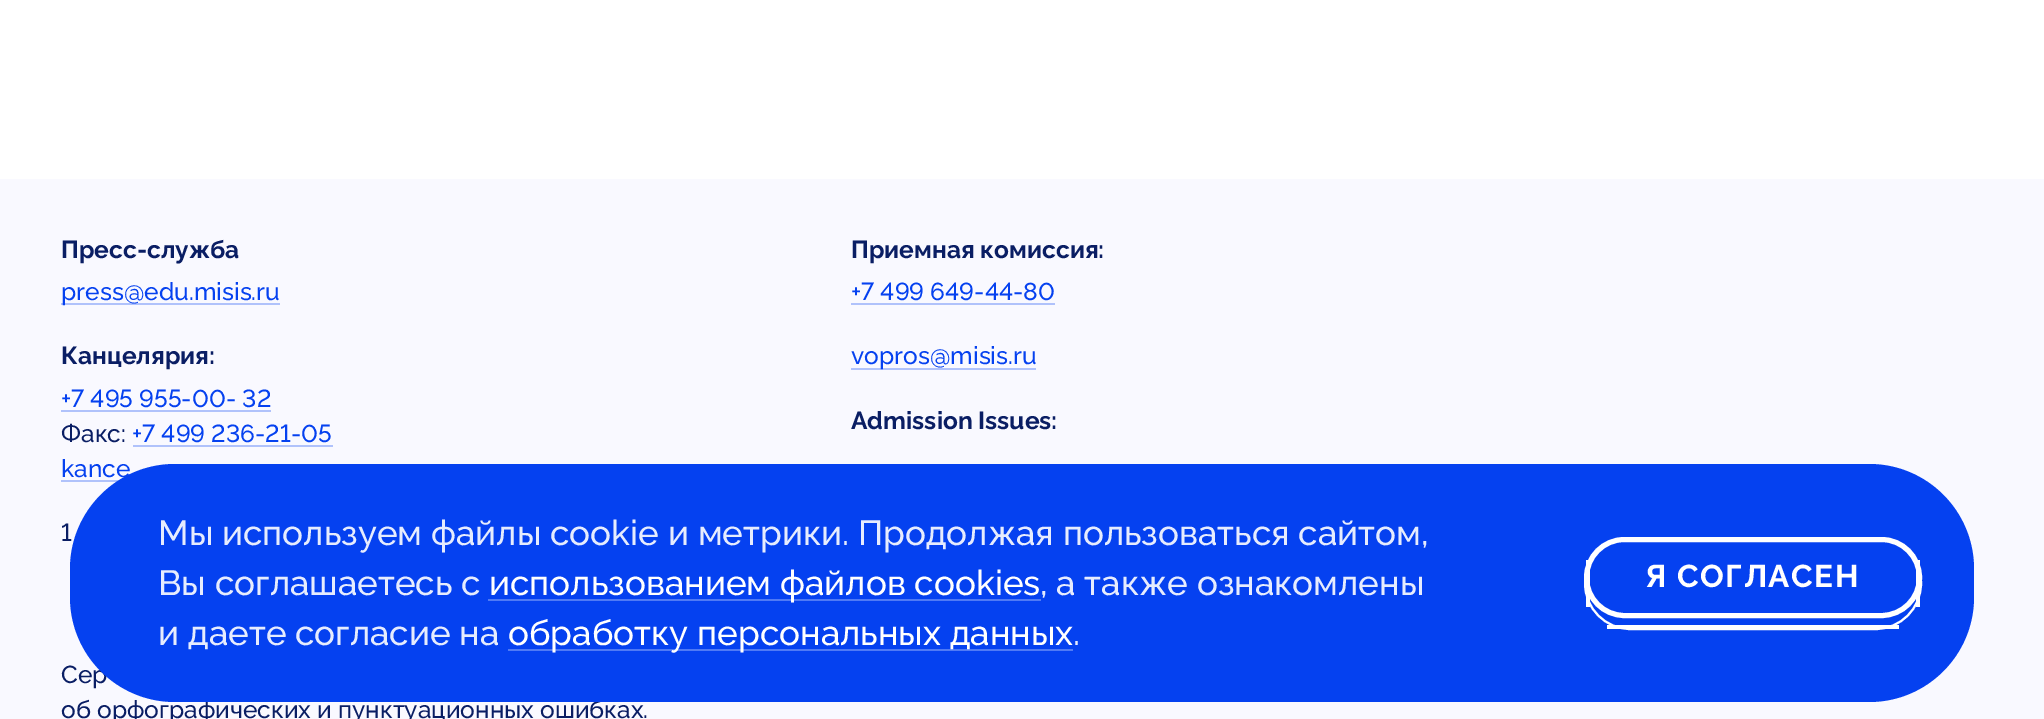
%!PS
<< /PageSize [2044 719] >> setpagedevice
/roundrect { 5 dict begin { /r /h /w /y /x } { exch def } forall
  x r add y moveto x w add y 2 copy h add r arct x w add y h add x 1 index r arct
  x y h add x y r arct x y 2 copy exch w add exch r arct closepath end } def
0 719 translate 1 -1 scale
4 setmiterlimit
1 setgray
0 0 2044 719 rectfill
0.976 0.976 1 setrgbcolor
0 179 2044 540 rectfill
/Raleway-Bold [24.5 0 0 -24.5 0 0] selectfont
0.039 0.118 0.392 setrgbcolor
61 258 moveto (Пресс-служба) show
0.69 0.761 0.984 setrgbcolor
61 303 219 2 rectfill
/Raleway-Medium [24.5 0 0 -24.5 0 0] selectfont
0.02 0.255 0.941 setrgbcolor
61 300 moveto (press@edu.misis.ru) show
/Raleway-Bold [24.5 0 0 -24.5 0 0] selectfont
0.039 0.118 0.392 setrgbcolor
61 364 moveto (Канцелярия:) show
/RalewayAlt-Medium [24.5 0 0 -24.5 0 0] selectfont
0.02 0.255 0.941 setrgbcolor
61 407 moveto (+7 495 955-00- 32) show
0.69 0.761 0.984 setrgbcolor
61 410 210 2 rectfill
/Raleway-Medium [24.5 0 0 -24.5 0 0] selectfont
0.039 0.118 0.392 setrgbcolor
61 442 moveto (Факс:) show
/RalewayAlt-Medium [24.5 0 0 -24.5 0 0] selectfont
0.02 0.255 0.941 setrgbcolor
132 442 moveto (+7 499 236-21-05) show
0.69 0.761 0.984 setrgbcolor
133 445 200 2 rectfill
/Raleway-Medium [24.5 0 0 -24.5 0 0] selectfont
0.02 0.255 0.941 setrgbcolor
61 477 moveto (kance) show
0.69 0.761 0.984 setrgbcolor
61 480 59 2 rectfill
/RalewayAlt-Medium [24.5 0 0 -24.5 0 0] selectfont
0.039 0.118 0.392 setrgbcolor
61 541 moveto (1) show
/Raleway-Medium [24.5 0 0 -24.5 0 0] selectfont
61 683 moveto (Сер) show
61 718 moveto (об орфографических и пунктуационных ошибках.) show
/Raleway-Bold [24.5 0 0 -24.5 0 0] selectfont
851 258 moveto (Приемная комиссия:) show
/RalewayAlt-Medium [24.5 0 0 -24.5 0 0] selectfont
0.02 0.255 0.941 setrgbcolor
851 300 moveto (+7 499 649-44-80) show
0.69 0.761 0.984 setrgbcolor
851 303 204 2 rectfill
851 368 185 2 rectfill
/Raleway-Medium [24.5 0 0 -24.5 0 0] selectfont
0.02 0.255 0.941 setrgbcolor
851 364 moveto (vopros@misis.ru) show
/Raleway-Bold [24.5 0 0 -24.5 0 0] selectfont
0.039 0.118 0.392 setrgbcolor
851 429 moveto (Admission Issues:) show
0.02 0.255 0.941 setrgbcolor
70 464 1904 238 105 roundrect fill
/Raleway-Medium [35 0 0 -35 0 0] selectfont
0.902 0.925 0.996 setrgbcolor
158 545 moveto (Мы используем файлы cookie и метрики. Продолжая пользоваться сайтом,) show
158 595 moveto (Вы соглашаетесь с) show
0.314 0.478 0.961 setrgbcolor
488 599 553 2 rectfill
1 setgray
489 595 moveto (использованием файлов cookies) show
0.902 0.925 0.996 setrgbcolor
1040 595 moveto (, а также ознакомлены) show
158 645 moveto (и даете согласие на) show
0.314 0.478 0.961 setrgbcolor
508 649 565 2 rectfill
1 setgray
508 645 moveto (обработку персональных данных) show
0.902 0.925 0.996 setrgbcolor
1073 645 moveto (.) show
1 setgray
5 setlinewidth
1586.5 539.5 333 76 38 roundrect stroke
2 setlinewidth
1585 538 336 91 45.5 roundrect stroke
1916 560 4 47 rectfill
1607 625 292 4 rectfill
1586 560 4 47 rectfill
/Raleway-Bold [31.5 0 0 -31.5 0 0] selectfont
1645 587 moveto 1.5 0 (Я СОГЛАСЕН) ashow
showpage
